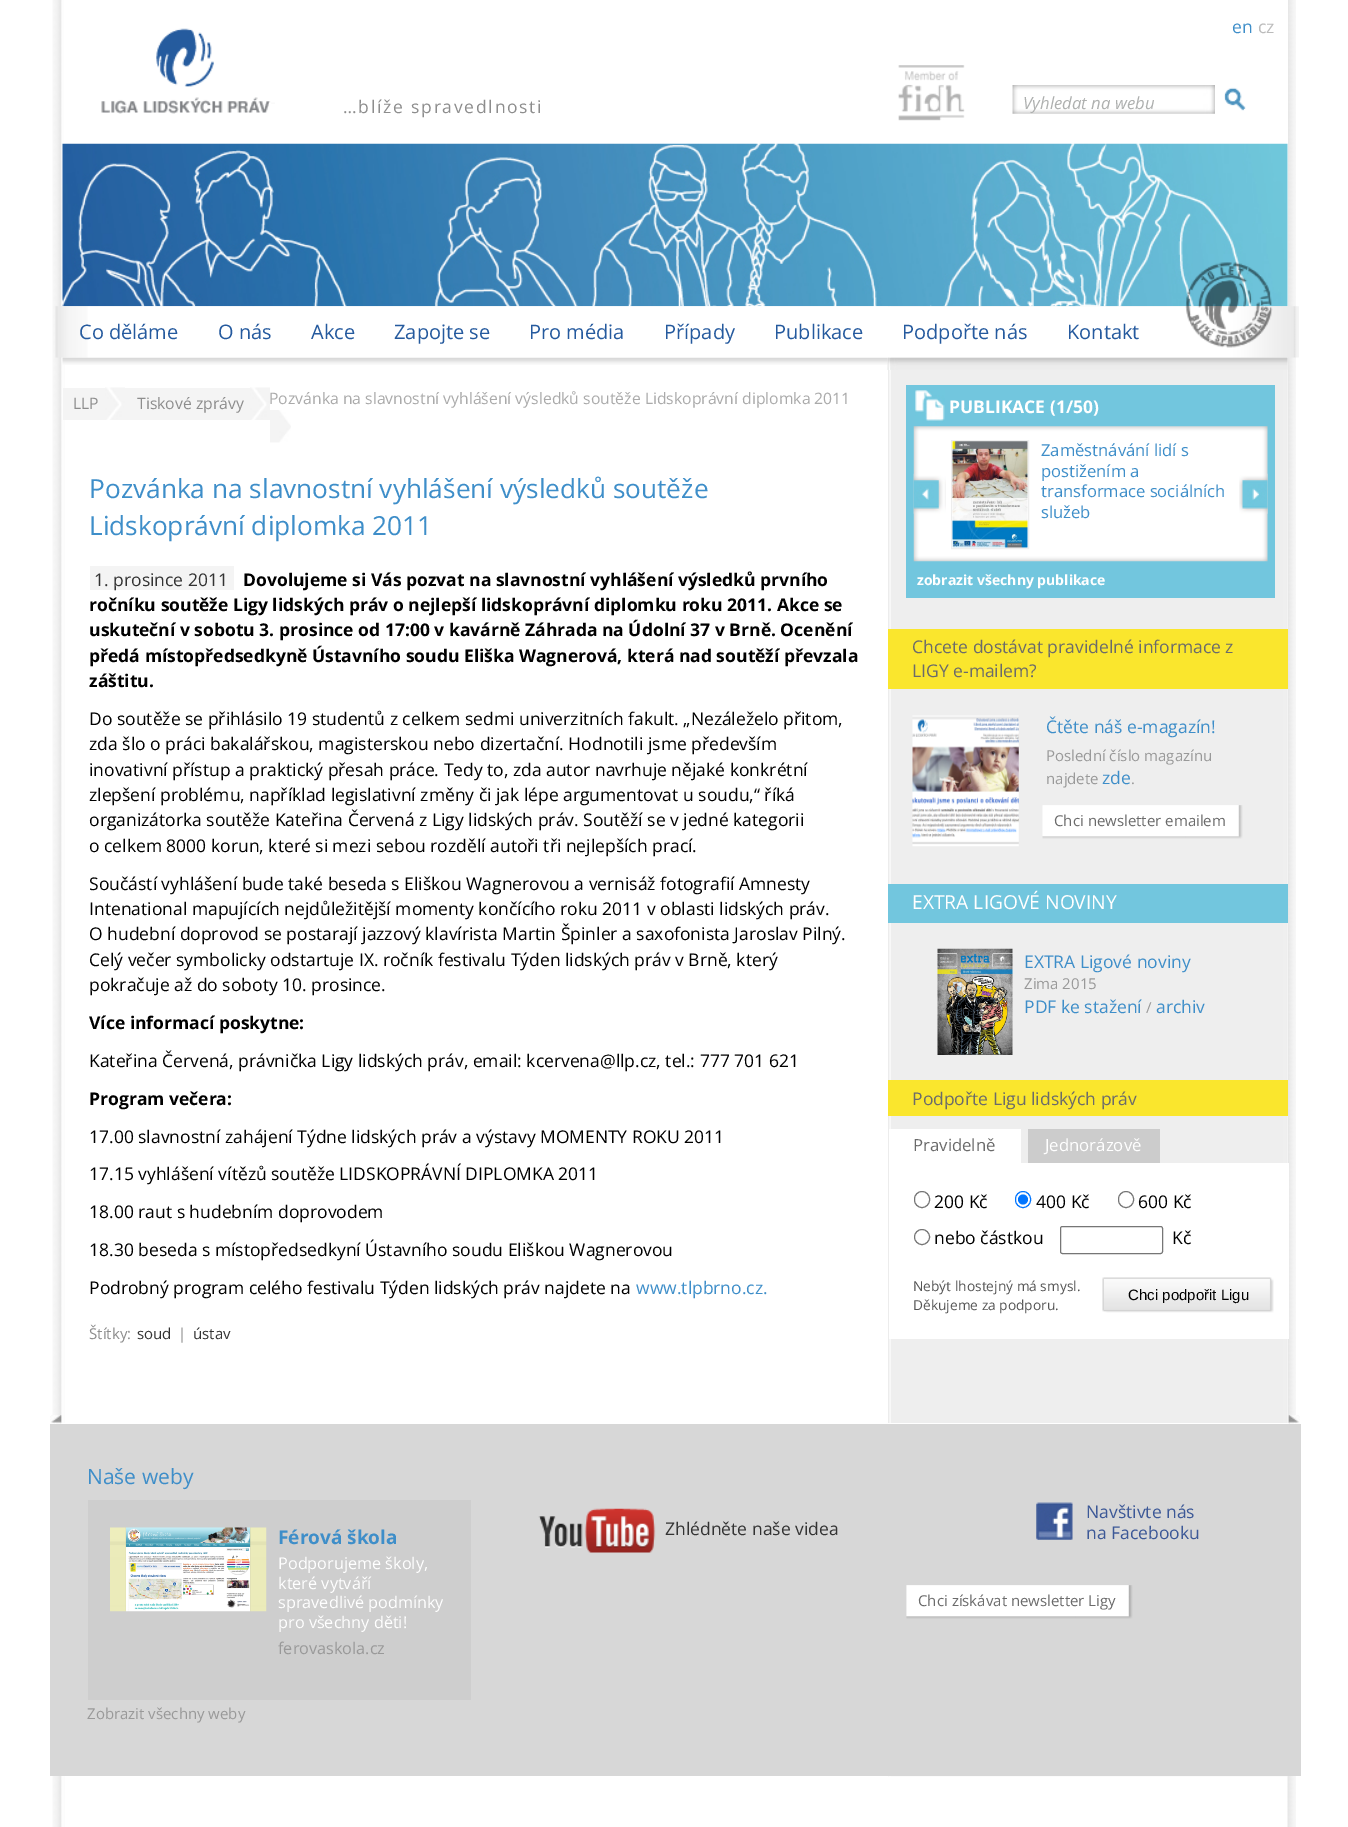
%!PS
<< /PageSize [1348 1827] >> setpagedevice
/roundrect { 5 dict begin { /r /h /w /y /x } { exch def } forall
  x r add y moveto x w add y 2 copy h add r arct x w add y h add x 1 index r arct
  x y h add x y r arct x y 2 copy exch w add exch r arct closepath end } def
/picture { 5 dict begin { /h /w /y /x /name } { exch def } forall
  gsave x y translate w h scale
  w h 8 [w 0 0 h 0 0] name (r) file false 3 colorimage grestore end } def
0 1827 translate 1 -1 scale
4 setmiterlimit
1 setgray
0 0 1348 1827 rectfill
(img1.rgb) 52 0 1244 1827 picture
(img2.rgb) 888 306 399 1471 picture
64 0 1224 306 rectfill
(img3.rgb) 62 143 1226 164 picture
(img4.rgb) 101 28 174 86 picture
/OpenSans-Regular [17.5 0 0 -17.5 0 0] selectfont
0.553 setgray
343 113 moveto 1.75 0 (…blíže spravedlnosti) ashow
(img5.rgb) 898 65 67 56 picture
(img6.rgb) 1012 85 203 29 picture
(img7.rgb) 1224 87 22 24 picture
/OpenSans-Italic [16.75 0 0 -16.75 0 0] selectfont
0.682 0.69 0.686 setrgbcolor
1023 109 moveto (Vyhledat na webu) show
/OpenSans-Regular [17.5 0 0 -17.5 0 0] selectfont
0.243 0.557 0.788 setrgbcolor
1232 33 moveto (en) show
0.733 setgray
1258 33 moveto (cz) show
(img10.rgb) 62 357 826 8 picture
(img13.rgb) 887 357 401 13 picture
(img9.rgb) 55 306 1244 52 picture
(img8.rgb) 1185 262 88 86 picture
/OpenSans-Regular [20 0 0 -20 0 0] selectfont
0.145 0.353 0.62 setrgbcolor
79 339 moveto (Co děláme) show
218 339 moveto (O nás) show
311 339 moveto (Akce) show
394 339 moveto (Zapojte se) show
529 339 moveto (Pro média) show
664 339 moveto (Případy) show
774 339 moveto (Publikace) show
902 339 moveto (Podpořte nás) show
1067 339 moveto (Kontakt) show
0.957 setgray
63 388 42 32 rectfill
/OpenSans-Regular [15.75 0 0 -15.75 0 0] selectfont
0.553 setgray
73 409 moveto (LLP) show
(img11.rgb) 105 387 20 33 picture
0.957 setgray
125 388 125 32 rectfill
0.553 setgray
137 409 moveto (Tiskové zprávy) show
(img11.rgb) 250 387 20 33 picture
0.667 setgray
269 404 moveto (Pozvánka na slavnostní vyhlášení výsledků soutěže Lidskoprávní diplomka 2011) show
(img12.rgb) 270 410 21 33 picture
0.447 0.776 0.871 setrgbcolor
906 385 369 213 rectfill
(img14.rgb) 913 426 355 136 picture
(img15.rgb) 915 390 30 33 picture
/OpenSans-Bold [17.5 0 0 -17.5 0 0] selectfont
1 setgray
949 413 moveto (PUBLIKACE \(1/50\)) show
(img16.rgb) 913 473 33 41 picture
0.933 setgray
951.5 440.5 77 108 rectstroke
(img17.rgb) 952 441 76 107 picture
/OpenSans-Regular [16.6 0 0 -16.6 0 0] selectfont
0.243 0.557 0.788 setrgbcolor
1041 456 moveto (Zaměstnávání lidí s) show
1041 477 moveto (postižením a) show
1041 497 moveto (transformace sociálních) show
1041 518 moveto (služeb) show
(img18.rgb) 1239 473 29 41 picture
/OpenSans-Bold [14 0 0 -14 0 0] selectfont
1 setgray
917 585 moveto (zobrazit všechny publikace) show
0.98 0.902 0.176 setrgbcolor
888 629 400 60 rectfill
/OpenSans-Regular [17.5 0 0 -17.5 0 0] selectfont
0.42 setgray
912 653 moveto (Chcete dostávat pravidelné informace z) show
912 677 moveto (LIGY e-mailem?) show
(img19.rgb) 912 715 107 132 picture
0.243 0.557 0.788 setrgbcolor
1046 733 moveto (Čtěte náš e-magazín!) show
/OpenSans-Regular [15 0 0 -15 0 0] selectfont
0.6 setgray
1046 761 moveto (Poslední číslo magazínu) show
1046 784 moveto (najdete) show
/OpenSans-Regular [17.5 0 0 -17.5 0 0] selectfont
0.243 0.557 0.788 setrgbcolor
1102 784 moveto (zde) show
/OpenSans-Regular [15 0 0 -15 0 0] selectfont
0.6 setgray
1131 784 moveto (.) show
(img20.rgb) 1042 805 201 34 picture
0.42 setgray
1054 826 moveto (Chci newsletter emailem) show
0.447 0.776 0.871 setrgbcolor
888 884 400 39 rectfill
/OpenSans-Regular [19.25 0 0 -19.25 0 0] selectfont
1 setgray
912 909 moveto (EXTRA LIGOVÉ NOVINY) show
(img21.rgb) 937 948 76 107 picture
/OpenSans-Regular [17.5 0 0 -17.5 0 0] selectfont
0.243 0.557 0.788 setrgbcolor
1024 968 moveto (EXTRA Ligové noviny) show
/OpenSans-Regular [15 0 0 -15 0 0] selectfont
0.6 setgray
1024 989 moveto (Zima 2015) show
/OpenSans-Regular [17.5 0 0 -17.5 0 0] selectfont
0.243 0.557 0.788 setrgbcolor
1024 1013 moveto (PDF ke stažení) show
/OpenSans-Regular [15 0 0 -15 0 0] selectfont
0.6 setgray
1146 1013 moveto (/) show
/OpenSans-Regular [17.5 0 0 -17.5 0 0] selectfont
0.243 0.557 0.788 setrgbcolor
1156 1013 moveto (archiv) show
0.98 0.902 0.176 setrgbcolor
888 1080 400 36 rectfill
0.42 setgray
912 1105 moveto (Podpořte Ligu lidských práv) show
1 setgray
889 1129 132 34 rectfill
/OpenSans-Regular [16.75 0 0 -16.75 0 0] selectfont
0.42 setgray
913 1151 moveto (Pravidelně) show
0.8 setgray
1028 1129 132 34 rectfill
1 setgray
1045 1151 moveto (Jednorázově) show
889 1163 400 176 rectfill
0.463 setgray
914.5 1191.5 15 16 7.5 roundrect stroke
/OpenSans-Regular [17.5 0 0 -17.5 0 0] selectfont
0 setgray
934 1208 moveto (200 Kč) show
0 0.459 1 setrgbcolor
1015.5 1191.5 15 16 7.5 roundrect stroke
newpath 1023 1199.5 5 0 360 arc closepath fill
0 setgray
1036 1208 moveto (400 Kč) show
0.463 setgray
1118.5 1191.5 15 16 7.5 roundrect stroke
0 setgray
1138 1208 moveto (600 Kč) show
0.463 setgray
newpath 922 1237 7.5 0 360 arc closepath stroke
0 setgray
934 1244 moveto (nebo částkou) show
0.463 setgray
1060.5 1226.5 102 27 2 roundrect stroke
0 setgray
1172 1244 moveto (Kč) show
/OpenSans-Regular [13.75 0 0 -13.75 0 0] selectfont
0.333 setgray
913 1291 moveto (Nebýt lhostejný má smysl.) show
913 1310 moveto (Děkujeme za podporu.) show
(img22.rgb) 1102 1277 172 36 picture
/LiberationSans-Regular [15 0 0 -15 0 0] selectfont
0 setgray
1128 1300 moveto (Chci podpořit Ligu) show
/OpenSans-Regular [26.25 0 0 -26.25 0 0] selectfont
0.243 0.557 0.788 setrgbcolor
89 498 moveto (Pozvánka na slavnostní vyhlášení výsledků soutěže) show
89 535 moveto (Lidskoprávní diplomka 2011) show
/OpenSans-Bold [17.5 0 0 -17.5 0 0] selectfont
0 setgray
243 586 moveto (Dovolujeme si Vás pozvat na slavnostní vyhlášení výsledků prvního) show
89 611 moveto (ročníku soutěže Ligy lidských práv o nejlepší lidskoprávní diplomku roku 2011. Akce se) show
89 636 moveto (uskuteční v sobotu 3. prosince od 17:00 v kavárně Záhrada na Údolní 37 v Brně. Ocenění) show
89 662 moveto (předá místopředsedkyně Ústavního soudu Eliška Wagnerová, která nad soutěží převzala) show
89 687 moveto (záštitu.) show
/OpenSans-Regular [17.5 0 0 -17.5 0 0] selectfont
89 725 moveto (Do soutěže se přihlásilo 19 studentů z celkem sedmi univerzitních fakult. „Nezáleželo přitom,) show
89 750 moveto (zda šlo o práci bakalářskou, magisterskou nebo dizertační. Hodnotili jsme především) show
89 776 moveto (inovativní přístup a praktický přesah práce. Tedy to, zda autor navrhuje nějaké konkrétní) show
89 801 moveto (zlepšení problému, například legislativní změny či jak lépe argumentovat u soudu,“ říká) show
89 826 moveto (organizátorka soutěže Kateřina Červená z Ligy lidských práv. Soutěží se v jedné kategorii) show
89 852 moveto (o celkem 8000 korun, které si mezi sebou rozdělí autoři tři nejlepších prací.) show
89 890 moveto (Součástí vyhlášení bude také beseda s Eliškou Wagnerovou a vernisáž fotografií Amnesty) show
89 915 moveto (Intenational mapujících nejdůležitější momenty končícího roku 2011 v oblasti lidských práv.) show
89 940 moveto (O hudební doprovod se postarají jazzový klavírista Martin Špinler a saxofonista Jaroslav Pilný.) show
89 966 moveto (Celý večer symbolicky odstartuje IX. ročník festivalu Týden lidských práv v Brně, který) show
89 991 moveto (pokračuje až do soboty 10. prosince.) show
/OpenSans-Bold [17.5 0 0 -17.5 0 0] selectfont
89 1029 moveto (Více informací poskytne:) show
/OpenSans-Regular [17.5 0 0 -17.5 0 0] selectfont
89 1067 moveto (Kateřina Červená, právnička Ligy lidských práv, email: kcervena@llp.cz, tel.: 777 701 621) show
/OpenSans-Bold [17.5 0 0 -17.5 0 0] selectfont
89 1105 moveto (Program večera:) show
/OpenSans-Regular [17.5 0 0 -17.5 0 0] selectfont
89 1143 moveto (17.00 slavnostní zahájení Týdne lidských práv a výstavy MOMENTY ROKU 2011) show
89 1180 moveto (17.15 vyhlášení vítězů soutěže LIDSKOPRÁVNÍ DIPLOMKA 2011) show
89 1218 moveto (18.00 raut s hudebním doprovodem) show
89 1256 moveto (18.30 beseda s místopředsedkyní Ústavního soudu Eliškou Wagnerovou) show
89 1294 moveto (Podrobný program celého festivalu Týden lidských práv najdete na) show
0.243 0.557 0.788 setrgbcolor
636 1294 moveto (www.tlpbrno.cz.) show
0.957 setgray
90 566 144 24 rectfill
0.2 setgray
94 586 moveto (1. prosince 2011) show
/OpenSans-Regular [15 0 0 -15 0 0] selectfont
0.553 setgray
89 1339 moveto (Štítky:) show
0.2 setgray
137 1339 moveto (soud) show
0.553 setgray
178 1339 moveto (|) show
0.2 setgray
193 1339 moveto (ústav) show
0.843 setgray
50 1424 1251 352 rectfill
1 setgray
50 1423 1251 1 rectfill
(img23.rgb) 50 1415 12 9 picture
(img24.rgb) 1288 1415 12 9 picture
/OpenSans-Regular [21 0 0 -21 0 0] selectfont
0.243 0.557 0.788 setrgbcolor
87 1484 moveto (Naše weby) show
0.808 setgray
88 1500 383 200 rectfill
(img25.rgb) 110 1527 157 85 picture
/OpenSans-Bold [19 0 0 -19 0 0] selectfont
0.243 0.557 0.788 setrgbcolor
278 1544 moveto (Férová škola) show
/OpenSans-Regular [16.25 0 0 -16.25 0 0] selectfont
1 setgray
278 1569 moveto (Podporujeme školy,) show
278 1589 moveto (které vytváří) show
278 1608 moveto (spravedlivé podmínky) show
278 1628 moveto (pro všechny děti!) show
0.6 setgray
278 1654 moveto (ferovaskola.cz) show
/OpenSans-Regular [15 0 0 -15 0 0] selectfont
87 1719 moveto (Zobrazit všechny weby) show
(img26.rgb) 538 1508 118 45 picture
/OpenSans-Regular [17.5 0 0 -17.5 0 0] selectfont
0.2 setgray
665 1535 moveto (Zhlédněte naše videa) show
(img27.rgb) 1036 1502 37 38 picture
0.235 0.345 0.592 setrgbcolor
1086 1518 moveto (Navštivte nás) show
1086 1539 moveto (na Facebooku) show
(img28.rgb) 906 1585 227 34 picture
/OpenSans-Regular [15 0 0 -15 0 0] selectfont
0.42 setgray
918 1606 moveto (Chci získávat newsletter Ligy) show
showpage
